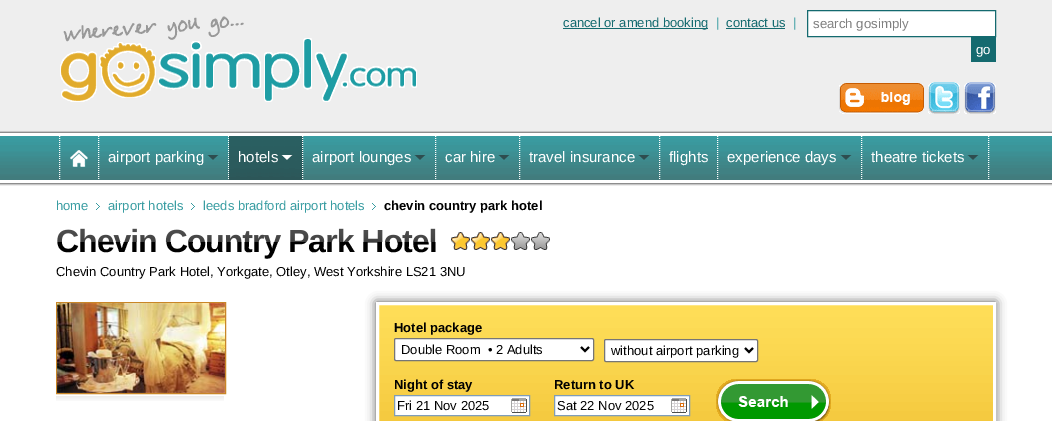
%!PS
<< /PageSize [1052 421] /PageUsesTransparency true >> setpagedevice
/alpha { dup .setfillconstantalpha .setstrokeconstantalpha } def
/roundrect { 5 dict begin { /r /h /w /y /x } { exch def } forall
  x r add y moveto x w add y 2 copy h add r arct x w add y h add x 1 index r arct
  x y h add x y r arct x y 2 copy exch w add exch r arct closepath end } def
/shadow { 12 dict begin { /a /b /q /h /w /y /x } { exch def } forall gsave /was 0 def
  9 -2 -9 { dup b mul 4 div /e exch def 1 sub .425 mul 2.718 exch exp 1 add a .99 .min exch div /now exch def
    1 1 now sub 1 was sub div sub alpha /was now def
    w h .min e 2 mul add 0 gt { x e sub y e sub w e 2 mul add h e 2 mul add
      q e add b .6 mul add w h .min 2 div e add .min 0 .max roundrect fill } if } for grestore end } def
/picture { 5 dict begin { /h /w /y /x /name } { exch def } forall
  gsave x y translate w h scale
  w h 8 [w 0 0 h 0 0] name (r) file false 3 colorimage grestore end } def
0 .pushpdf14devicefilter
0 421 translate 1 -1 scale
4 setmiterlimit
1 setgray
0 0 1052 421 rectfill
0.933 setgray
0 0 1052 130 rectfill
(img1.rgb) 60 16 357 86 picture
0.078 0.416 0.435 setrgbcolor
563 28 145 1 rectfill
/LiberationSans-Regular [13 0 0 -13 0 0] selectfont
563 27 moveto (cancel or amend booking) show
0.224 0.616 0.635 setrgbcolor
716 27 moveto (|) show
0.078 0.416 0.435 setrgbcolor
726 27 moveto (contact us) show
726 28 59 1 rectfill
0.224 0.616 0.635 setrgbcolor
793 27 moveto (|) show
1 setgray
newpath 807.5 10.5 moveto 995.5 10.5 lineto 995.5 36.5 lineto 807.5 36.5 lineto closepath gsave fill grestore
0.078 0.416 0.435 setrgbcolor
stroke
/LiberationSans-Regular [13.25 0 0 -13.25 0 0] selectfont
0.502 setgray
813 28 moveto (search gosimply) show
0.078 0.416 0.435 setrgbcolor
971 37 25 25 rectfill
1 setgray
976 54 moveto (go) show
(img2.rgb) 839 83 85 31 picture
(img3.rgb) 928 82 32 32 picture
(img4.rgb) 964 82 32 32 picture
(img5.rgb) 0 130 1052 56 picture
(img6.rgb) 70 150 18 17 picture
[1 1] 0 setdash
newpath 98.5 136 moveto 98.5 180 lineto 59.5 136 moveto 59.5 180 lineto stroke
newpath 228.5 136 moveto 228.5 180 lineto stroke
/LiberationSans-Regular [15 0 0 -15 0 0] selectfont
108 162 moveto (airport parking) show
(img7.rgb) 207 155 12 5 picture
(img8.rgb) 229 136 74 44 picture
newpath 302.5 136 moveto 302.5 180 lineto stroke
238 162 moveto (hotels) show
(img9.rgb) 281 155 12 5 picture
newpath 435.5 136 moveto 435.5 180 lineto stroke
312 162 moveto (airport lounges) show
(img7.rgb) 414 155 12 5 picture
newpath 519.5 136 moveto 519.5 180 lineto stroke
445 162 moveto (car hire) show
(img7.rgb) 498 155 12 5 picture
newpath 659.5 136 moveto 659.5 180 lineto stroke
529 162 moveto (travel insurance) show
(img7.rgb) 638 155 12 5 picture
newpath 717.5 136 moveto 717.5 180 lineto stroke
669 162 moveto (flights) show
newpath 861.5 136 moveto 861.5 180 lineto stroke
727 162 moveto (experience days) show
(img7.rgb) 840 155 12 5 picture
newpath 988.5 136 moveto 988.5 180 lineto stroke
871 162 moveto (theatre tickets) show
(img7.rgb) 967 155 12 5 picture
/LiberationSans-Regular [13 0 0 -13 0 0] selectfont
0.224 0.616 0.635 setrgbcolor
56 210 moveto (home) show
(img10.rgb) 96 203 4 7 picture
108 210 moveto (airport hotels) show
(img10.rgb) 191 203 4 7 picture
203 210 moveto (leeds bradford airport hotels) show
(img10.rgb) 372 203 4 7 picture
/LiberationSans-Bold [13 0 0 -13 0 0] selectfont
0 setgray
384 210 moveto (chevin country park hotel) show
/LiberationSans-Bold [32 0 0 -32 0 0] selectfont
56 252 moveto -1 0 (Chevin Country Park Hotel) ashow
(img11.rgb) 57 228 379 14 picture
(img12.rgb) 451 232 99 18 picture
/LiberationSans-Regular [13 0 0 -13 0 0] selectfont
56 276 moveto (Chevin Country Park Hotel, Yorkgate, Otley, West Yorkshire LS21 3NU) show
(img13.rgb) 56 396 168 5 picture
0.788 0.525 0.153 setrgbcolor
[] 0 setdash
56.5 302.5 169 91 rectstroke
(img14.rgb) 57 303 168 90 picture
0.333 setgray
376 302 620 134 0 5 1 shadow
(img15.rgb) 379 305 614 116 picture
1 setgray
3 setlinewidth
377.5 303.5 617 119 rectstroke
/LiberationSans-Bold [13 0 0 -13 0 0] selectfont
0 setgray
394 332 moveto (Hotel package) show
1 setgray
394.5 338.5 199 22 1.5 roundrect gsave fill grestore
0.463 setgray
1 setlinewidth
stroke
0 setgray
2 setlinewidth
newpath 581 347 moveto 585 351 lineto 589 347 lineto stroke
/LiberationSans-Regular [13 0 0 -13 0 0] selectfont
401 354 moveto (Double Room  • 2 Adults) show
1 setgray
604.5 339.5 153 22 1.5 roundrect gsave fill grestore
0.463 setgray
1 setlinewidth
stroke
0 setgray
2 setlinewidth
newpath 745 348 moveto 749 352 lineto 753 348 lineto stroke
611 355 moveto (without airport parking) show
/LiberationSans-Bold [13 0 0 -13 0 0] selectfont
394 389 moveto (Night of stay) show
1 setgray
395 396 134 19 rectfill
(img16.rgb) 511 398 16 15 picture
0.498 0.616 0.725 setrgbcolor
1 setlinewidth
394.5 395.5 135 20 rectstroke
/LiberationSans-Regular [13 0 0 -13 0 0] selectfont
0 setgray
397 410 moveto (Fri 21 Nov 2025) show
/LiberationSans-Bold [13 0 0 -13 0 0] selectfont
554 389 moveto (Return to UK) show
1 setgray
555 396 134 19 rectfill
(img16.rgb) 671 398 16 15 picture
0.498 0.616 0.725 setrgbcolor
554.5 395.5 135 20 rectstroke
/LiberationSans-Regular [13 0 0 -13 0 0] selectfont
0 setgray
557 410 moveto (Sat 22 Nov 2025) show
(img17.rgb) 716 379 115 42 picture
.poppdf14devicefilter showpage
